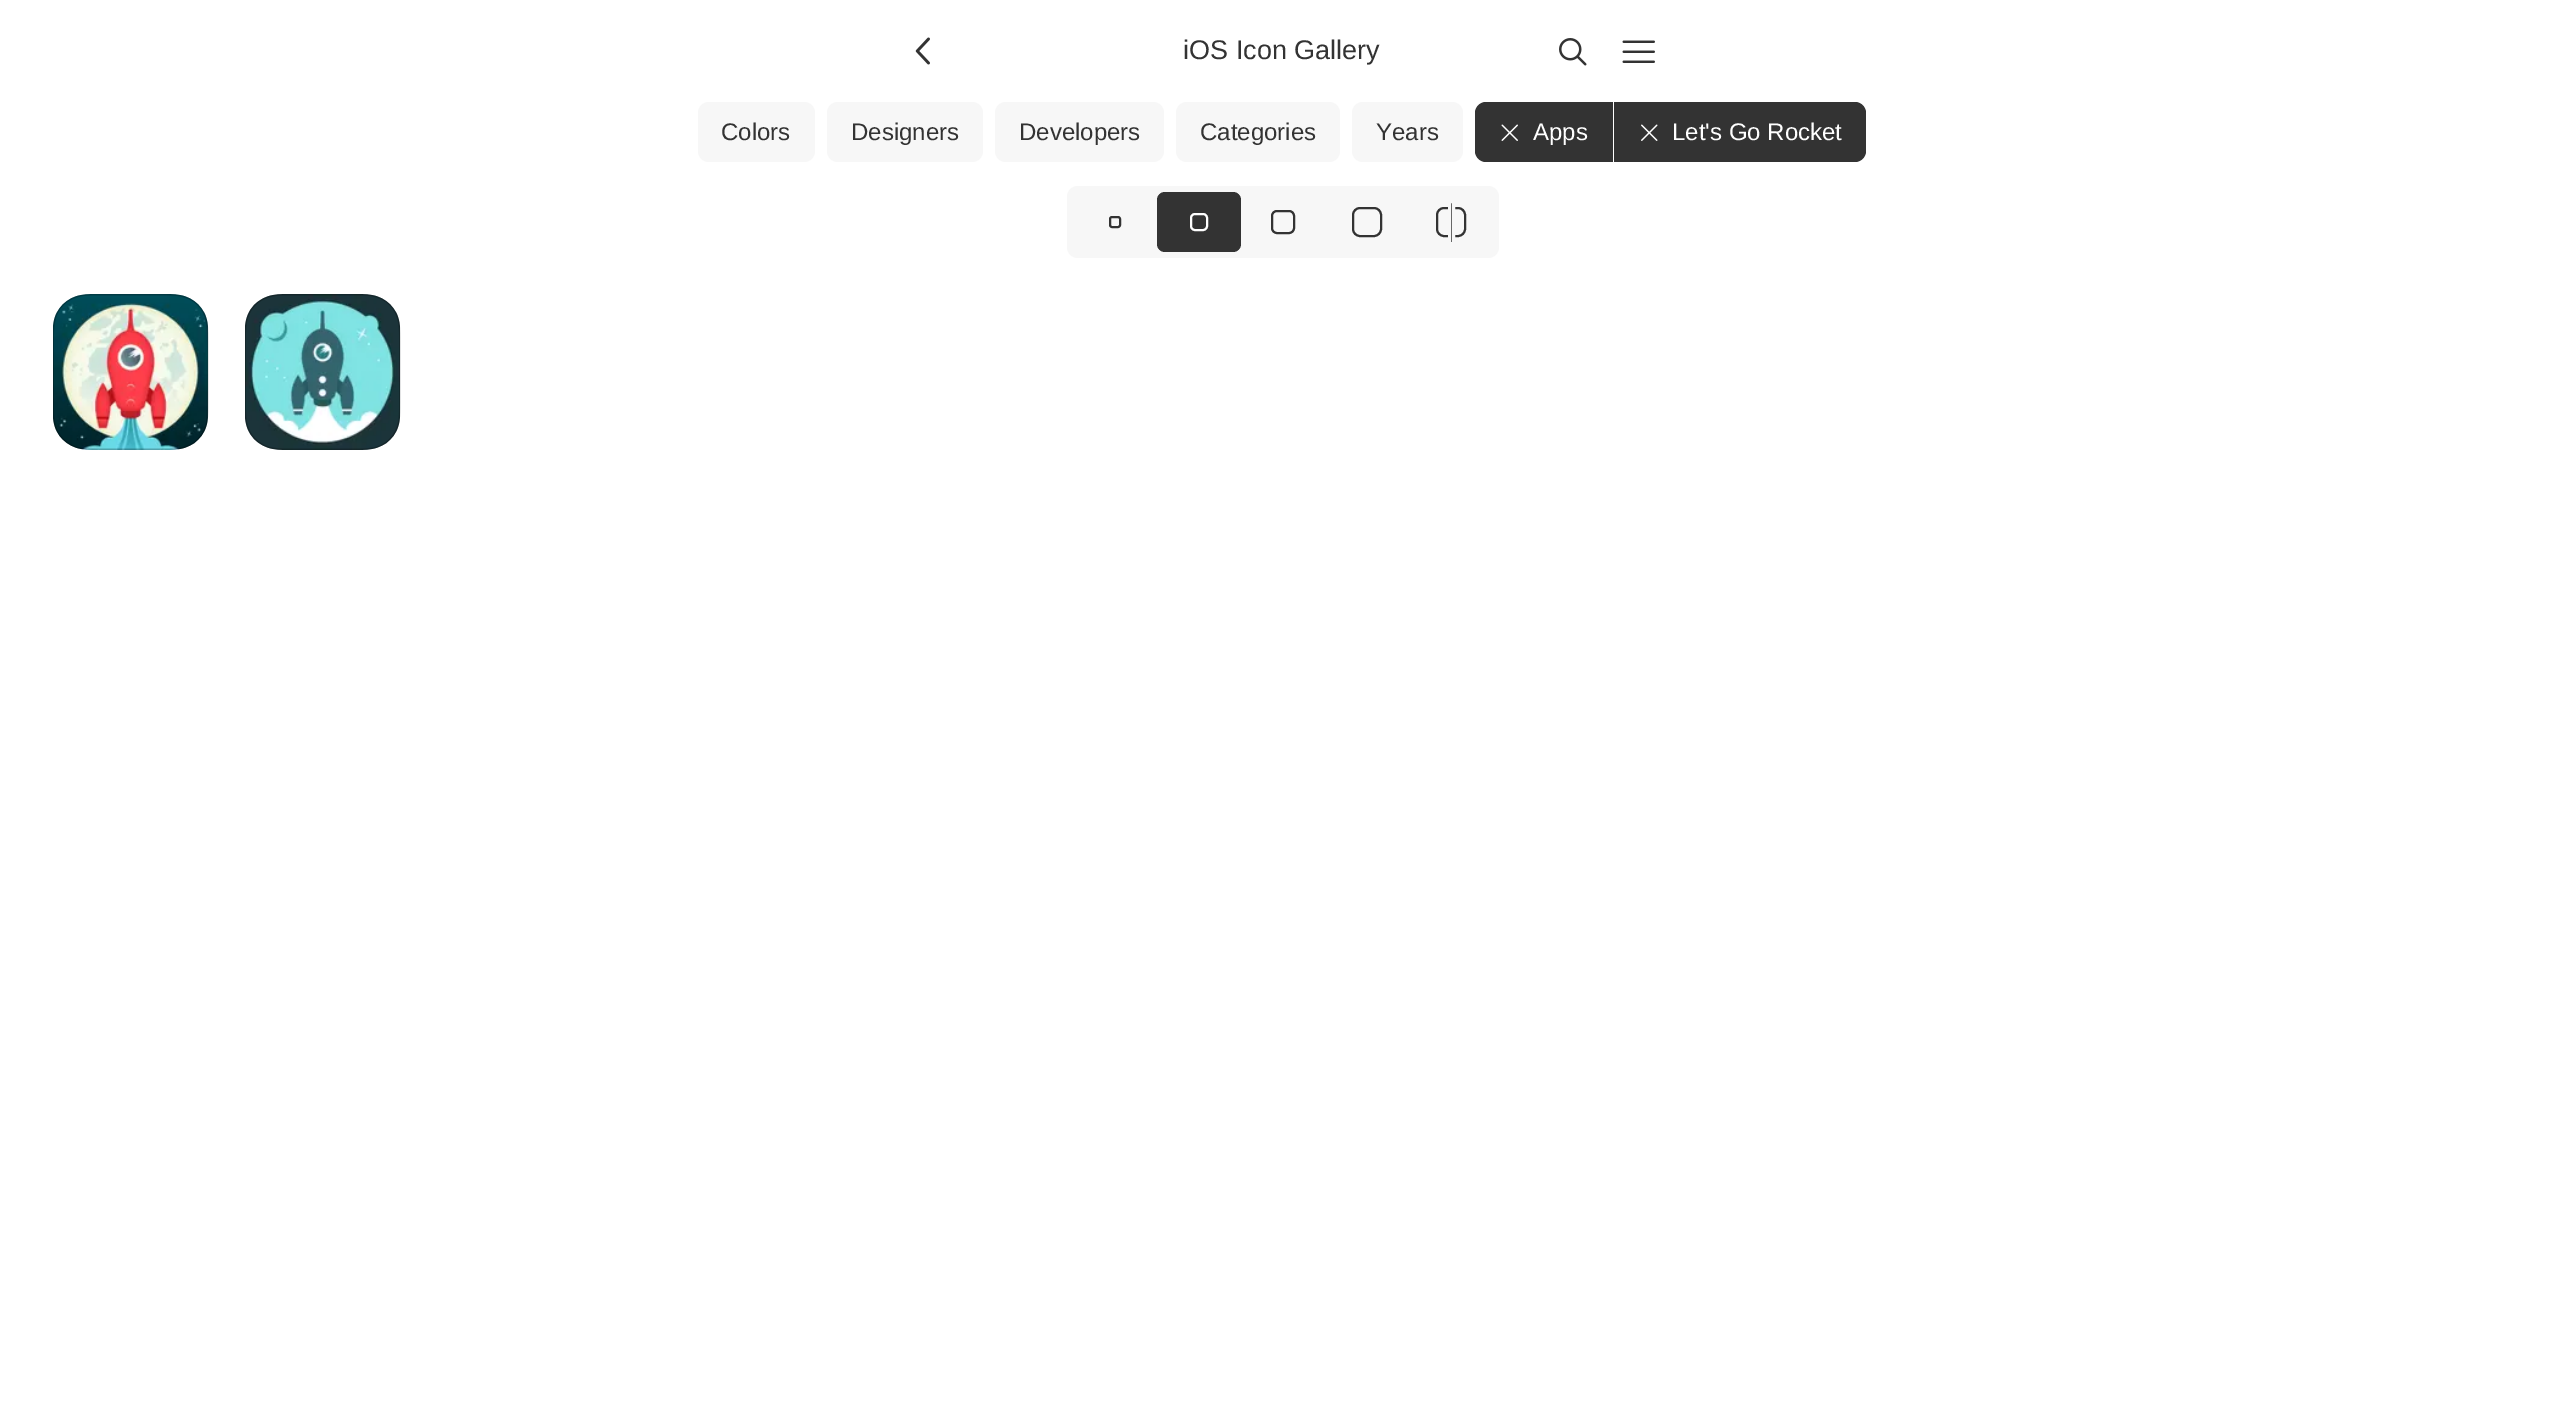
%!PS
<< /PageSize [2563 1425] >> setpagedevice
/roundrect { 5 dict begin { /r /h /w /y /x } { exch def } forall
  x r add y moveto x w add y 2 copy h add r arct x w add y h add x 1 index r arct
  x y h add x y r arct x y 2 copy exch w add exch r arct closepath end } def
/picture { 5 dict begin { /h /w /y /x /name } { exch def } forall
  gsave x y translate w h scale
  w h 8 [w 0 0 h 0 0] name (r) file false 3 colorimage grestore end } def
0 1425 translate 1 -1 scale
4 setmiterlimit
1 setgray
0 0 2563 1425 rectfill
(img1.rgb) 915 37 15 28 picture
/LiberationSans-Regular [27 0 0 -27 0 0] selectfont
0.2 setgray
1183 59 moveto (iOS Icon Gallery) show
(img2.rgb) 1559 38 28 28 picture
(img3.rgb) 1622 40 33 23 picture
0.969 setgray
698 102 117 60 11 roundrect fill
/LiberationSans-Regular [24 0 0 -24 0 0] selectfont
0.2 setgray
721 140 moveto (Colors) show
0.969 setgray
827 102 156 60 11 roundrect fill
0.2 setgray
851 140 moveto (Designers) show
0.969 setgray
995 102 169 60 11 roundrect fill
0.2 setgray
1019 140 moveto (Developers) show
0.969 setgray
1176 102 164 60 11 roundrect fill
0.2 setgray
1200 140 moveto (Categories) show
0.969 setgray
1352 102 111 60 11 roundrect fill
0.2 setgray
1376 140 moveto (Years) show
newpath 1486 102 moveto 1613 102 lineto 1613 162 lineto 1486 162 lineto 1480 162 1475 157 1475 151 curveto 1475 113 lineto 1475 107 1480 102 1486 102 curveto closepath fill
(img4.rgb) 1501 124 17 17 picture
1 setgray
1533 140 moveto (Apps) show
0.2 setgray
newpath 1614 102 moveto 1855 102 lineto 1861 102 1866 107 1866 113 curveto 1866 151 lineto 1866 157 1861 162 1855 162 curveto 1614 162 lineto closepath fill
(img5.rgb) 1641 124 17 17 picture
1 setgray
1672 140 moveto (Let's Go Rocket) show
0.969 setgray
1067 186 432 72 11 roundrect fill
0.2 setgray
2 setlinewidth
1110 217 10 10 2 roundrect stroke
1157 192 84 60 8 roundrect fill
1 setgray
1191 214 16 16 4 roundrect stroke
0.2 setgray
1272 211 22 22 5 roundrect stroke
1353 208 28 28 7 roundrect stroke
1437 208 28 28 7 roundrect stroke
newpath 1449.5 201.5 moveto 1453.5 201.5 lineto 1453.5 243.5 lineto 1449.5 243.5 lineto closepath gsave fill grestore
0.969 setgray
3 setlinewidth
stroke
(img6.rgb) 53 294 156 156 picture
(img7.rgb) 53 294 156 156 picture
(img8.rgb) 245 294 156 156 picture
(img9.rgb) 245 294 156 156 picture
showpage
